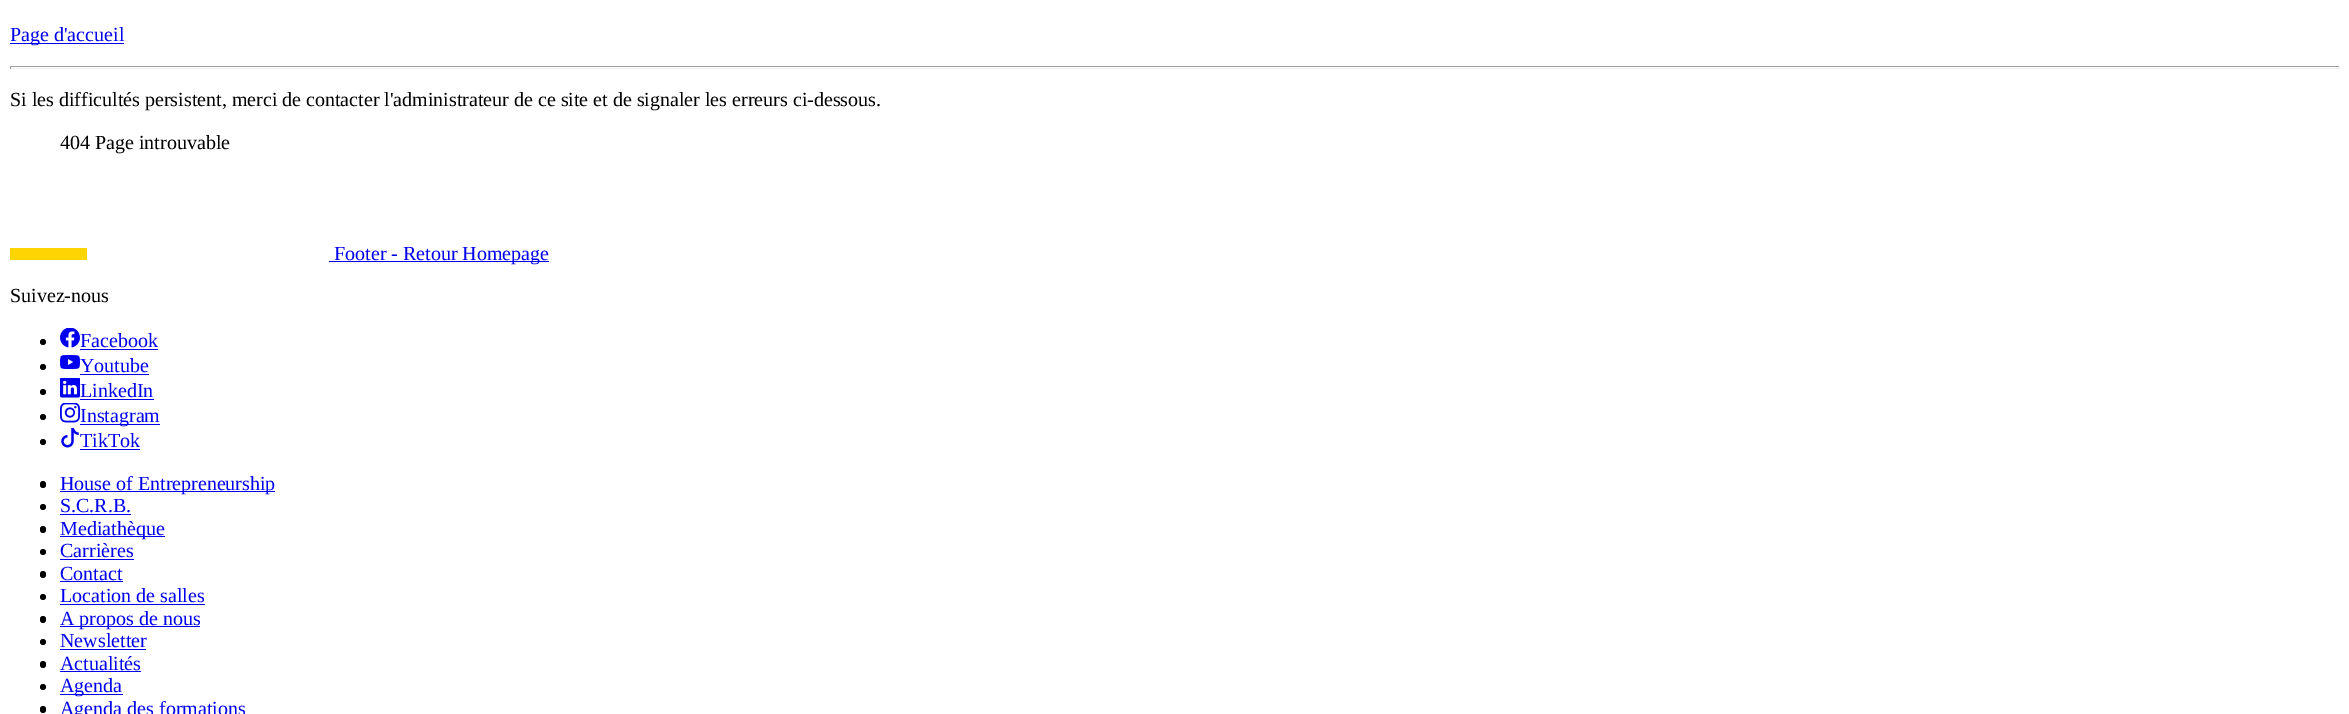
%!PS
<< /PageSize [2349 714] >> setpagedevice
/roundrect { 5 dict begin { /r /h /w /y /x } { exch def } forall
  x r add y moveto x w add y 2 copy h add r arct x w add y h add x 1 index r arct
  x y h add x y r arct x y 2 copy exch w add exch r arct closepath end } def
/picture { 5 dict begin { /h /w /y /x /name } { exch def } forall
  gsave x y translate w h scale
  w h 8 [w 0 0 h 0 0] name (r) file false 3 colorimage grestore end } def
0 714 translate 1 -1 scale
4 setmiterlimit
1 setgray
0 0 2349 714 rectfill
0 0 0.933 setrgbcolor
10 43 114 1 rectfill
/LiberationSerif-Regular [20 0 0 -20 0 0] selectfont
10 41 moveto (Page d'accueil) show
0.624 setgray
10 66 2330 1 rectfill
0.933 setgray
2339 66 1 3 rectfill
10 68 2330 1 rectfill
0.624 setgray
10 66 1 3 rectfill
0 setgray
10 106 moveto (Si les difficultés persistent, merci de contacter l'administrateur de ce site et de signaler les erreurs ci-dessous.) show
60 149 moveto (404 Page introuvable) show
0 0 0.933 setrgbcolor
329 261 220 1 rectfill
334 260 moveto (Footer - Retour Homepage) show
1 0.835 0 setrgbcolor
10 248 77 12 rectfill
0 setgray
10 302 moveto (Suivez-nous) show
newpath 43 342 3 0 360 arc closepath fill
(img1.rgb) 60 328 20 20 picture
0 0 0.933 setrgbcolor
80 347 moveto (Facebook) show
80 349 78 1 rectfill
0 setgray
newpath 43 367 3 0 360 arc closepath fill
(img2.rgb) 60 355 20 15 picture
0 0 0.933 setrgbcolor
80 372 moveto (Youtube) show
80 374 69 1 rectfill
0 setgray
newpath 43 392 3 0 360 arc closepath fill
(img3.rgb) 60 378 20 20 picture
0 0 0.933 setrgbcolor
80 397 moveto (LinkedIn) show
80 399 74 1 rectfill
0 setgray
newpath 43 417 3 0 360 arc closepath fill
(img4.rgb) 60 403 20 20 picture
0 0 0.933 setrgbcolor
80 424 80 1 rectfill
80 422 moveto (Instagram) show
0 setgray
newpath 43 442 3 0 360 arc closepath fill
(img5.rgb) 61 428 18 20 picture
0 0 0.933 setrgbcolor
80 447 moveto (TikTok) show
80 449 60 1 rectfill
0 setgray
40 481 6 7 3 roundrect fill
0 0 0.933 setrgbcolor
60 491 215 1 rectfill
60 490 moveto (House of Entrepreneurship) show
0 setgray
newpath 43 507 3 0 360 arc closepath fill
0 0 0.933 setrgbcolor
60 512 moveto (S.C.R.B.) show
60 514 71 1 rectfill
0 setgray
40 526 6 7 3 roundrect fill
0 0 0.933 setrgbcolor
60 536 105 1 rectfill
60 535 moveto (Mediathèque) show
0 setgray
newpath 43 552 3 0 360 arc closepath fill
0 0 0.933 setrgbcolor
60 557 moveto (Carrières) show
60 559 74 1 rectfill
0 setgray
40 571 6 7 3 roundrect fill
0 0 0.933 setrgbcolor
60 580 moveto (Contact) show
60 581 63 1 rectfill
0 setgray
newpath 43 597 3 0 360 arc closepath fill
0 0 0.933 setrgbcolor
60 602 moveto (Location de salles) show
60 604 145 1 rectfill
0 setgray
40 616 6 7 3 roundrect fill
0 0 0.933 setrgbcolor
60 626 140 1 rectfill
60 625 moveto (A propos de nous) show
0 setgray
newpath 43 642 3 0 360 arc closepath fill
0 0 0.933 setrgbcolor
60 647 moveto (Newsletter) show
60 649 86 1 rectfill
0 setgray
40 661 6 7 3 roundrect fill
0 0 0.933 setrgbcolor
60 670 moveto (Actualités) show
60 671 81 1 rectfill
0 setgray
newpath 43 687 3 0 360 arc closepath fill
0 0 0.933 setrgbcolor
60 694 63 1 rectfill
60 692 moveto (Agenda) show
0 setgray
40 706 6 7 3 roundrect fill
0 0 0.933 setrgbcolor
60 715 moveto (Agenda des formations) show
showpage
